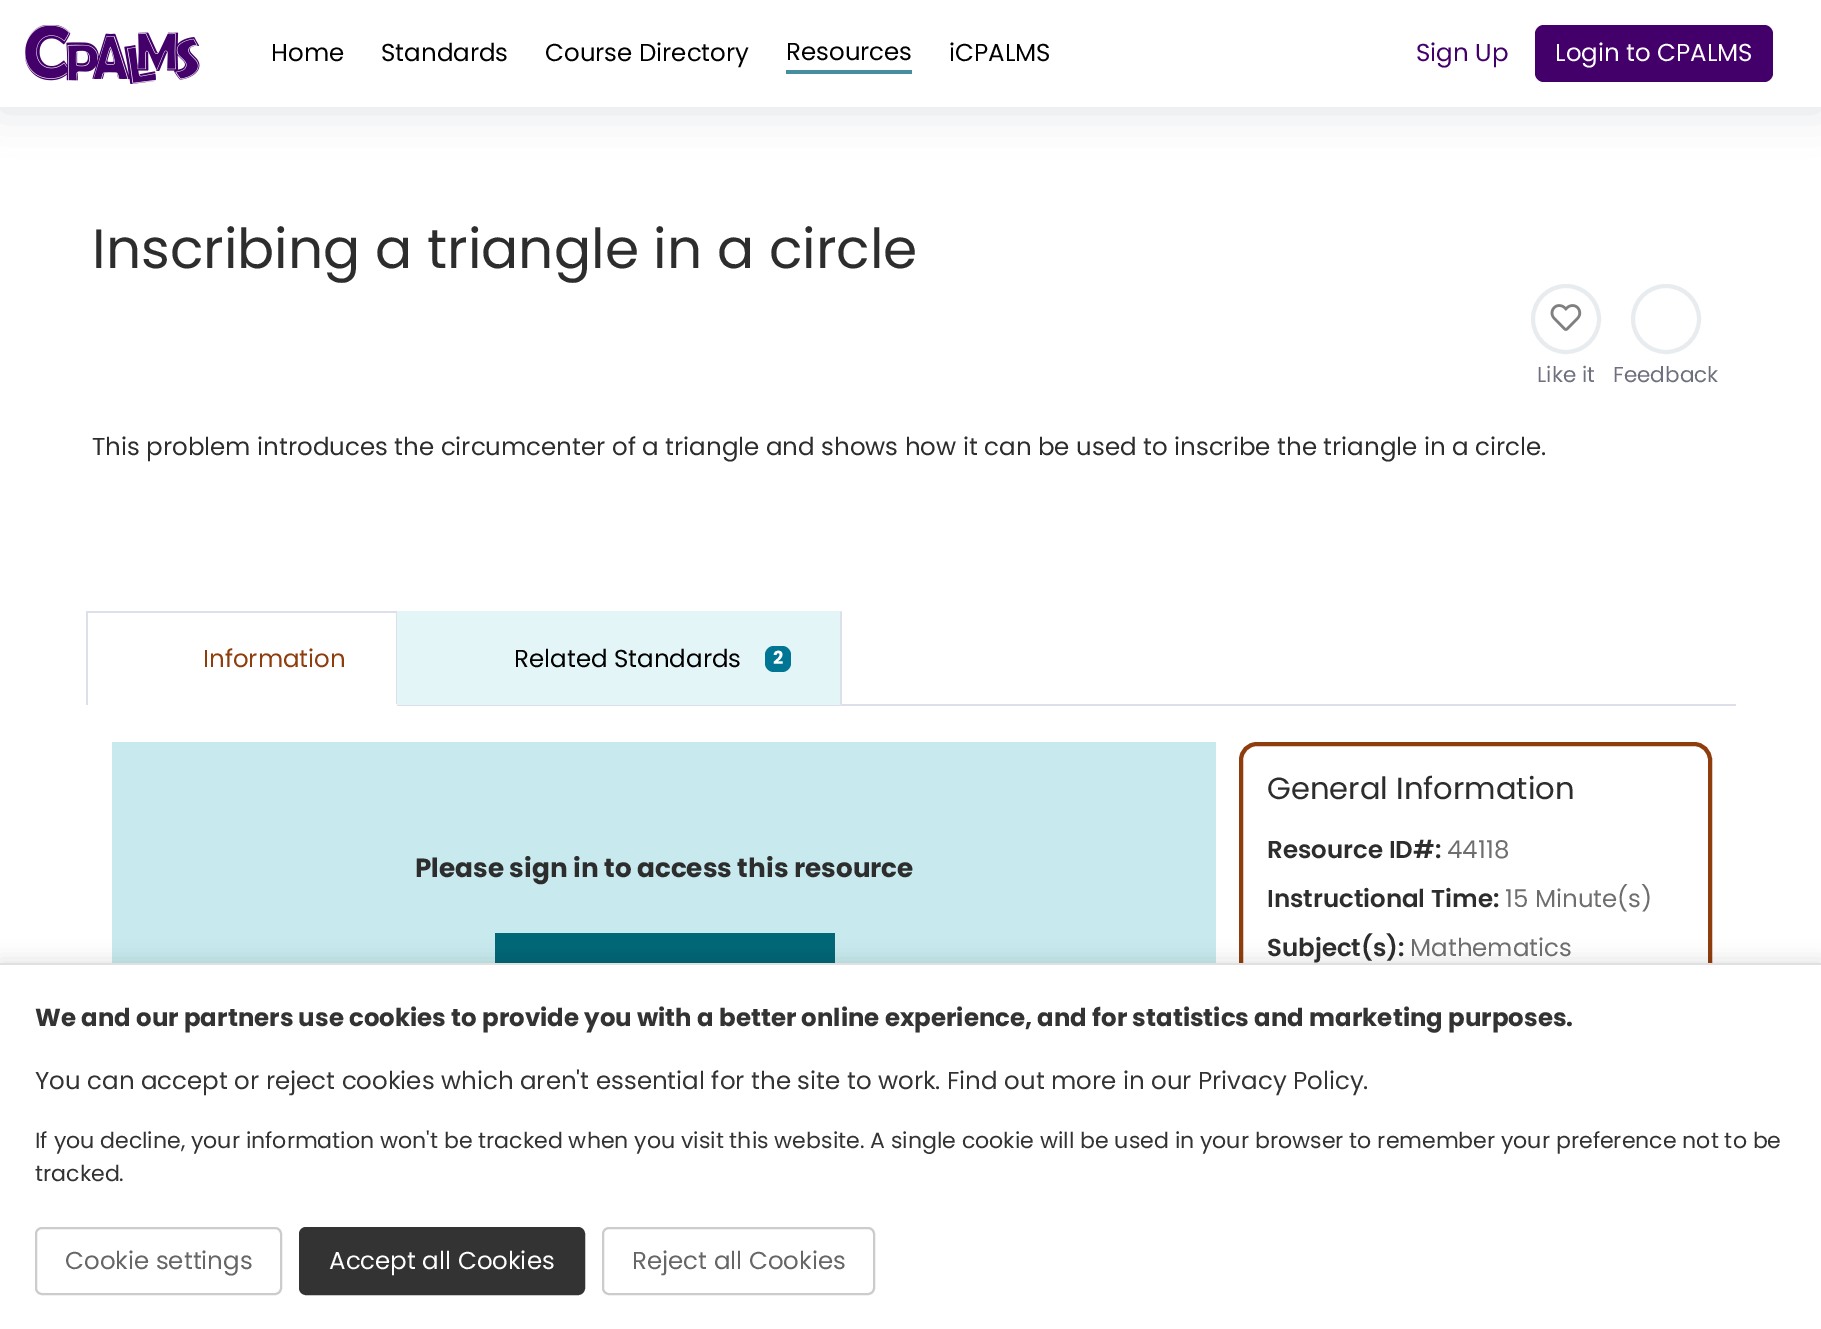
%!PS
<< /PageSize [1821 1329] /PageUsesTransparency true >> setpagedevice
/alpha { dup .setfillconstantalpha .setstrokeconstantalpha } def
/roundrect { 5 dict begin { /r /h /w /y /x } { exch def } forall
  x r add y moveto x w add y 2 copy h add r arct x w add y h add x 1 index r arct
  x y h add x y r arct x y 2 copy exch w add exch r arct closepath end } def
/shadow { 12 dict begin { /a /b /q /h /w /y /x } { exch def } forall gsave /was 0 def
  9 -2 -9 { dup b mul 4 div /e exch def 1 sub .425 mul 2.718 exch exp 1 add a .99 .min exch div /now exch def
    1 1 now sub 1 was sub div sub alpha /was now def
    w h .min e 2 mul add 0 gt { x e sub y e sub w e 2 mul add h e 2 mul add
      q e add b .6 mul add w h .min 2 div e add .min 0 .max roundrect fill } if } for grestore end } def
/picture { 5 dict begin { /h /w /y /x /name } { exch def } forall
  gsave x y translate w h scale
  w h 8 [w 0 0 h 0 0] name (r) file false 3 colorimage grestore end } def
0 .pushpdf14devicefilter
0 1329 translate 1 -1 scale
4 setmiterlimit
1 setgray
0 0 1821 1329 rectfill
0.227 0.231 0.271 setrgbcolor
0 4 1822 106 0 21.5 0.15 shadow
1 setgray
0 0 1821 107 rectfill
(img1.rgb) 25 25 175 59 picture
/Poppins-Regular [24.5 0 0 -24.5 0 0] selectfont
0 setgray
271 61 moveto (Home) show
381 61 moveto (Standards) show
545 61 moveto (Course Directory) show
0.278 0.553 0.627 setrgbcolor
786 70 126 4 rectfill
0 setgray
786 60 moveto (Resources) show
949 61 moveto (iCPALMS) show
0.267 0 0.416 setrgbcolor
1416 61 moveto (Sign Up) show
1535 25 238 57 9 roundrect fill
1 setgray
1555 61 moveto (Login to CPALMS) show
/Poppins-Regular [55.1 0 0 -55.1 0 0] selectfont
0.176 setgray
92 268 moveto (Inscribing a triangle in a circle) show
0.914 0.925 0.937 setrgbcolor
4 setlinewidth
newpath 1566 319 33 0 360 arc closepath stroke
(img2.rgb) 1550 304 32 27 picture
/Poppins-Regular [21.5 0 0 -21.5 0 0] selectfont
0.431 0.439 0.494 setrgbcolor
1537 382 moveto (Like it) show
0.914 0.925 0.937 setrgbcolor
newpath 1666 319 33 0 360 arc closepath stroke
0.431 0.439 0.494 setrgbcolor
1613 382 moveto (Feedback) show
/Poppins-Regular [24.5 0 0 -24.5 0 0] selectfont
0.176 setgray
92 455 moveto (This problem introduces the circumcenter of a triangle and shows how it can be used to inscribe the triangle in a circle.) show
0.867 0.875 0.922 setrgbcolor
397 704 1339 2 rectfill
86 611 311 2 rectfill
396 611 1 94 rectfill
1 setgray
396 704 1 1 rectfill
0.867 0.875 0.922 setrgbcolor
86 611 2 94 rectfill
0.561 0.239 0.051 setrgbcolor
203 667 moveto (Information) show
0.89 0.961 0.965 setrgbcolor
397 611 445 94 rectfill
0.867 0.875 0.922 setrgbcolor
newpath 842 611 moveto 842 705 lineto 840 704 lineto 840 612 lineto closepath fill
0 setgray
514 667 moveto (Related Standards) show
0 0.463 0.58 setrgbcolor
765 646 26 26 9 roundrect fill
/Poppins-Bold [18 0 0 -18 0 0] selectfont
1 setgray
773 664 moveto (2) show
0.784 0.918 0.933 setrgbcolor
112 742 1104 221 rectfill
/Poppins-Bold [26.25 0 0 -26.25 0 0] selectfont
0.176 setgray
415 877 moveto (Please sign in to access this resource) show
0.004 0.4 0.459 setrgbcolor
495 933 340 30 rectfill
0.561 0.239 0.051 setrgbcolor
1241 744 469 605 16 roundrect stroke
/Poppins-Regular [30.6 0 0 -30.6 0 0] selectfont
0.176 setgray
1267 799 moveto (General Information) show
/Poppins-SemiBold [24.5 0 0 -24.5 0 0] selectfont
1267 858 moveto (Resource ID#:) show
/Poppins-Regular [24.5 0 0 -24.5 0 0] selectfont
0.431 setgray
1447 858 moveto (44118) show
/Poppins-SemiBold [24.5 0 0 -24.5 0 0] selectfont
0.176 setgray
1267 907 moveto (Instructional Time:) show
/Poppins-Regular [24.5 0 0 -24.5 0 0] selectfont
0.431 setgray
1505 907 moveto (15 Minute\(s\)) show
/Poppins-SemiBold [24.5 0 0 -24.5 0 0] selectfont
0.176 setgray
1267 956 moveto (Subject\(s\):) show
/Poppins-Regular [24.5 0 0 -24.5 0 0] selectfont
0.431 setgray
1410 956 moveto (Mathematics) show
0 setgray
0 959 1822 368 0 9 0.1 shadow
1 setgray
0 965 1821 364 rectfill
0.878 setgray
0 963 1821 2 rectfill
/Poppins-Bold [24.5 0 0 -24.5 0 0] selectfont
0.2 setgray
35 1026 moveto (We and our partners use cookies to provide you with a better online experience, and for statistics and marketing purposes.) show
/Poppins-Regular [24.5 0 0 -24.5 0 0] selectfont
35 1089 moveto (You can accept or reject cookies which aren't essential for the site to work. Find out more in our Privacy Policy.) show
/Poppins-Regular [22.05 0 0 -22.05 0 0] selectfont
35 1148 moveto (If you decline, your information won't be tracked when you visit this website. A single cookie will be used in your browser to remember your preference not to be) show
35 1181 moveto (tracked.) show
0.8 setgray
2 setlinewidth
36 1228 245 66 6 roundrect stroke
/Poppins-Regular [24.5 0 0 -24.5 0 0] selectfont
0.4 setgray
65 1269 moveto (Cookie settings) show
0.2 setgray
300 1228 284 66 6 roundrect gsave fill grestore
stroke
1 setgray
329 1269 moveto (Accept all Cookies) show
0.8 setgray
603 1228 271 66 6 roundrect stroke
0.4 setgray
632 1269 moveto (Reject all Cookies) show
.poppdf14devicefilter showpage
